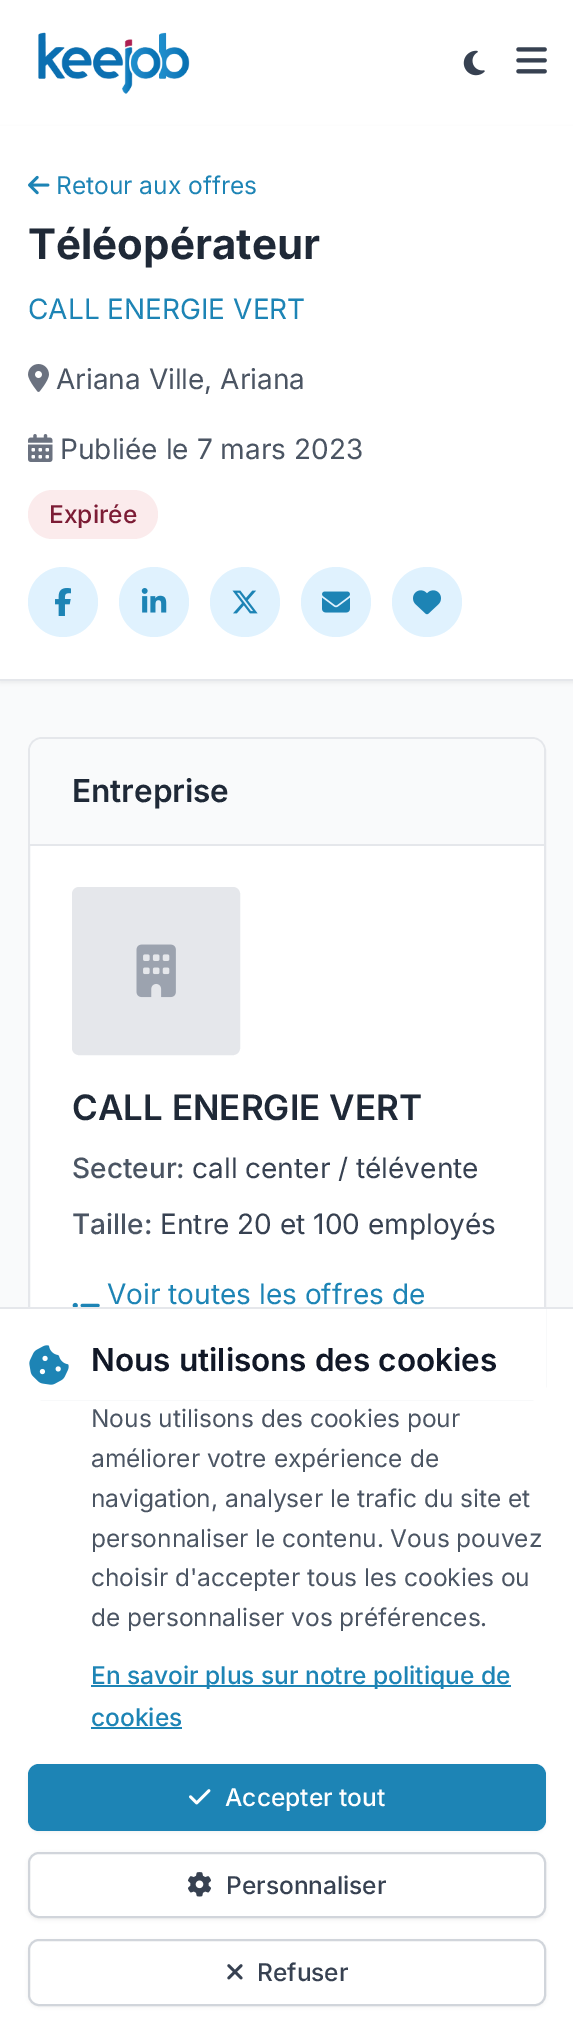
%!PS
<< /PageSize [573 2032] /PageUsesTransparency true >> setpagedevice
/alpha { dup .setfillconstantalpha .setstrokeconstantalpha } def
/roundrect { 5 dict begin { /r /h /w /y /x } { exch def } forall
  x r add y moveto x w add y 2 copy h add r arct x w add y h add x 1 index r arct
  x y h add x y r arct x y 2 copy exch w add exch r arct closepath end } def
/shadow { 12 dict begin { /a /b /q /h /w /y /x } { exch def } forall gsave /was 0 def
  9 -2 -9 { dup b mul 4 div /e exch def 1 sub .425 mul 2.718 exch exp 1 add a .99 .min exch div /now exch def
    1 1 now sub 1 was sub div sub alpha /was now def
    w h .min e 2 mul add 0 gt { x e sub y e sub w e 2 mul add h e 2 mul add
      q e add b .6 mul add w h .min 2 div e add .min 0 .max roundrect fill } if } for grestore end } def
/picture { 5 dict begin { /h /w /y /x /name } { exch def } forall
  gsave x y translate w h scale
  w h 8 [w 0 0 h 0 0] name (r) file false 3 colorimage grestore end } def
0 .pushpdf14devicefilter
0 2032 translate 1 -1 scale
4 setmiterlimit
1 setgray
0 0 573 2032 rectfill
(img1.rgb) 38 32 152 62 picture
(img2.rgb) 463 50 22 26 picture
(img3.rgb) 516 47 31 27 picture
0.976 0.98 0.984 setrgbcolor
0 681 573 626 rectfill
0 setgray
0 128 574 555 0 2 0.05 shadow
1 setgray
0 126 573 553 rectfill
0.898 0.906 0.922 setrgbcolor
0 679 573 2 rectfill
(img4.rgb) 28 175 22 20 picture
/Inter-Regular [24.5 0 0 -24.5 0 0] selectfont
0.114 0.518 0.71 setrgbcolor
56 194 moveto (Retour aux offres) show
/Inter-Bold [42 0 0 -42 0 0] selectfont
0.122 0.161 0.216 setrgbcolor
28 259 moveto (Téléopérateur) show
/Inter-Regular [28 0 0 -28 0 0] selectfont
0.114 0.518 0.71 setrgbcolor
28 319 moveto (CALL ENERGIE VERT) show
(img5.rgb) 28 364 21 28 picture
0.294 0.333 0.388 setrgbcolor
56 389 moveto (Ariana Ville, Ariana) show
(img6.rgb) 28 434 25 28 picture
60 459 moveto (Publiée le 7 mars 2023) show
0.984 0.922 0.925 setrgbcolor
28 490 130 49 24.5 roundrect fill
/Inter-Medium [24.5 0 0 -24.5 0 0] selectfont
0.486 0.11 0.208 setrgbcolor
49 523 moveto (Expirée) show
0.878 0.949 0.996 setrgbcolor
newpath 63 602 35 0 360 arc closepath fill
(img7.rgb) 55 588 16 28 picture
newpath 154 602 35 0 360 arc closepath fill
(img8.rgb) 141 588 26 25 picture
newpath 245 602 35 0 360 arc closepath fill
(img9.rgb) 232 590 26 24 picture
newpath 336 602 35 0 360 arc closepath fill
(img10.rgb) 322 591 28 22 picture
newpath 427 602 35 0 360 arc closepath fill
(img11.rgb) 413 590 28 25 picture
1 setgray
29 738 516 661 13 roundrect gsave fill grestore
0.898 0.906 0.922 setrgbcolor
2 setlinewidth
stroke
0.976 0.98 0.984 setrgbcolor
newpath 42 739 moveto 532 739 lineto 538.5 739 544 744.5 544 751 curveto 544 844 lineto 30 844 lineto 30 751 lineto 30 744.5 35.5 739 42 739 curveto closepath fill
0.898 0.906 0.922 setrgbcolor
30 844 514 2 rectfill
/Inter-SemiBold [31.5 0 0 -31.5 0 0] selectfont
0.122 0.161 0.216 setrgbcolor
72 802 moveto (Entreprise) show
0.898 0.906 0.922 setrgbcolor
73 888 166 166 6 roundrect gsave fill grestore
stroke
(img12.rgb) 136 944 40 54 picture
/Inter-SemiBold [35 0 0 -35 0 0] selectfont
0.122 0.161 0.216 setrgbcolor
72 1120 moveto (CALL ENERGIE VERT) show
/Inter-Medium [28 0 0 -28 0 0] selectfont
0.294 0.333 0.388 setrgbcolor
72 1178 moveto (Secteur:) show
/Inter-Regular [28 0 0 -28 0 0] selectfont
0.216 0.255 0.318 setrgbcolor
192 1178 moveto (call center / télévente) show
/Inter-Medium [28 0 0 -28 0 0] selectfont
0.294 0.333 0.388 setrgbcolor
72 1234 moveto (Taille:) show
/Inter-Regular [28 0 0 -28 0 0] selectfont
0.216 0.255 0.318 setrgbcolor
160 1234 moveto (Entre 20 et 100 employés) show
(img13.rgb) 72 1302 28 5 picture
0.114 0.518 0.71 setrgbcolor
107 1304 moveto (Voir toutes les offres de) show
1 setgray
28 1309 518 91 rectfill
0.898 0.906 0.922 setrgbcolor
0 1307 573 2 rectfill
(img14.rgb) 29 1345 40 40 picture
/Inter-SemiBold [31.5 0 0 -31.5 0 0] selectfont
0.067 0.094 0.153 setrgbcolor
91 1371 moveto (Nous utilisons des cookies) show
/Inter-Regular [24.5 0 0 -24.5 0 0] selectfont
0.294 0.333 0.388 setrgbcolor
91 1427 moveto (Nous utilisons des cookies pour) show
91 1467 moveto (améliorer votre expérience de) show
91 1507 moveto (navigation, analyser le trafic du site et) show
91 1547 moveto (personnaliser le contenu. Vous pouvez) show
91 1586 moveto (choisir d'accepter tous les cookies ou) show
91 1626 moveto (de personnaliser vos préférences.) show
0.114 0.518 0.71 setrgbcolor
91 1685 420 2 rectfill
/Inter-Medium [24.5 0 0 -24.5 0 0] selectfont
91 1684 moveto (En savoir plus sur notre politique de) show
91 1726 moveto (cookies) show
91 1727 91 2 rectfill
0 setgray
28 1766 518 66 11 2 0.05 shadow
0.114 0.518 0.71 setrgbcolor
28 1764 518 67 11 roundrect fill
(img15.rgb) 189 1789 22 16 picture
1 setgray
225 1806 moveto (Accepter tout) show
0 setgray
28 1853 518 67 11 2 0.05 shadow
1 setgray
29 1853 516 64 10 roundrect gsave fill grestore
0.82 0.835 0.859 setrgbcolor
stroke
(img16.rgb) 188 1872 23 25 picture
0.216 0.255 0.318 setrgbcolor
226 1894 moveto (Personnaliser) show
0 setgray
28 1941 518 66 11 2 0.05 shadow
1 setgray
29 1940 516 65 10 roundrect gsave fill grestore
0.82 0.835 0.859 setrgbcolor
stroke
(img17.rgb) 227 1964 16 16 picture
0.216 0.255 0.318 setrgbcolor
257 1981 moveto (Refuser) show
.poppdf14devicefilter showpage
